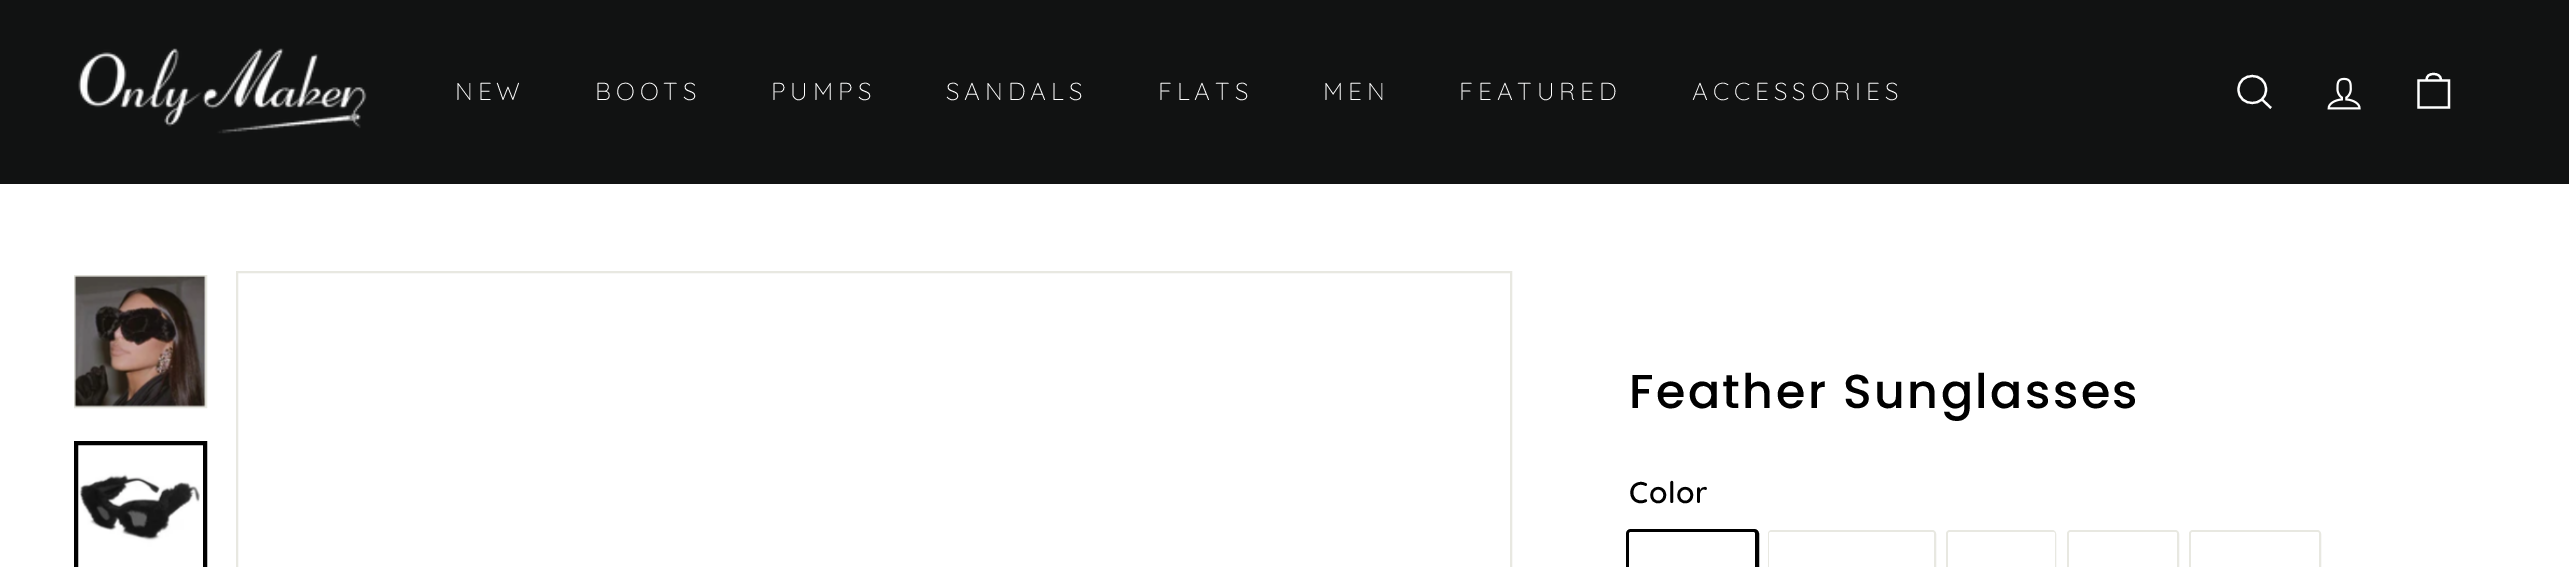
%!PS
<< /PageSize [2569 567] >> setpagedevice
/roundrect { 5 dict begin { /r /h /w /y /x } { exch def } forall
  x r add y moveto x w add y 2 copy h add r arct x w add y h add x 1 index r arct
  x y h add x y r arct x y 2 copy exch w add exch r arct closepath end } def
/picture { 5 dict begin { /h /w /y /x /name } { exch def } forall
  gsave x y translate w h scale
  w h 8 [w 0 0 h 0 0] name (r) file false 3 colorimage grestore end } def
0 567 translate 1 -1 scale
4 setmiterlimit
1 setgray
0 0 2569 567 rectfill
0.067 0.071 0.071 setrgbcolor
0 0 2569 184 rectfill
(img1.rgb) 78 48 289 86 picture
/Quicksand-Light [24.5 0 0 -24.5 0 0] selectfont
1 setgray
455 100 moveto 4.9 0 (NEW) ashow
595 100 moveto 4.9 0 (BOOTS) ashow
771 100 moveto 4.9 0 (PUMPS) ashow
946 100 moveto 4.9 0 (SANDALS) ashow
1158 100 moveto 4.9 0 (FLATS) ashow
1323 100 moveto 4.9 0 (MEN) ashow
1459 100 moveto 4.9 0 (FEATURED) ashow
1692 100 moveto 4.9 0 (ACCESSORIES) ashow
2.2 setlinewidth
newpath 2266 89.5 moveto 2266 107.5 2238.5 107.5 2238.5 89.5 curveto 2238.5 71.5 2266 71.5 2266 89.5 curveto closepath 2271 108 moveto 2262 99.5 lineto stroke
(img2.rgb) 2327 77 34 33 picture
newpath 2426.5 80.5 moveto 2426.5 75.5 2429.5 74 2433.5 74 curveto 2437.5 74 2441 75.5 2441 80.5 curveto 2418.5 80.5 moveto 2449 80.5 lineto 2449 107.5 lineto 2418.5 107.5 lineto closepath stroke
0.91 0.91 0.882 setrgbcolor
2 setlinewidth
75 276 131 131 rectstroke
(img3.rgb) 74 275 132 132 picture
(img4.rgb) 78 445 125 122 picture
0 setgray
4 setlinewidth
76 443 129 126 rectstroke
0.91 0.91 0.882 setrgbcolor
2 setlinewidth
237 272 1274 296 rectstroke
/Poppins-Medium [47.6 0 0 -47.6 0 0] selectfont
0 setgray
1629 408 moveto 2.4 0 (Feather Sunglasses) ashow
/Quicksand-SemiBold [30 0 0 -30 0 0] selectfont
1629 503 moveto 0.5 0 (Color) ashow
4 setlinewidth
1628 531 129 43 3 roundrect stroke
1 setgray
1629 532 126 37 2 roundrect fill
0.91 0.91 0.882 setrgbcolor
2 setlinewidth
1769 531 166 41 3 roundrect stroke
1 setgray
1769 532 165 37 2 roundrect fill
0.91 0.91 0.882 setrgbcolor
1947 531 108 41 3 roundrect stroke
1 setgray
1948 532 107 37 2 roundrect fill
0.91 0.91 0.882 setrgbcolor
2068 531 110 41 3 roundrect stroke
1 setgray
2069 532 108 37 2 roundrect fill
0.91 0.91 0.882 setrgbcolor
2190 531 130 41 3 roundrect stroke
1 setgray
2191 532 128 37 2 roundrect fill
showpage
